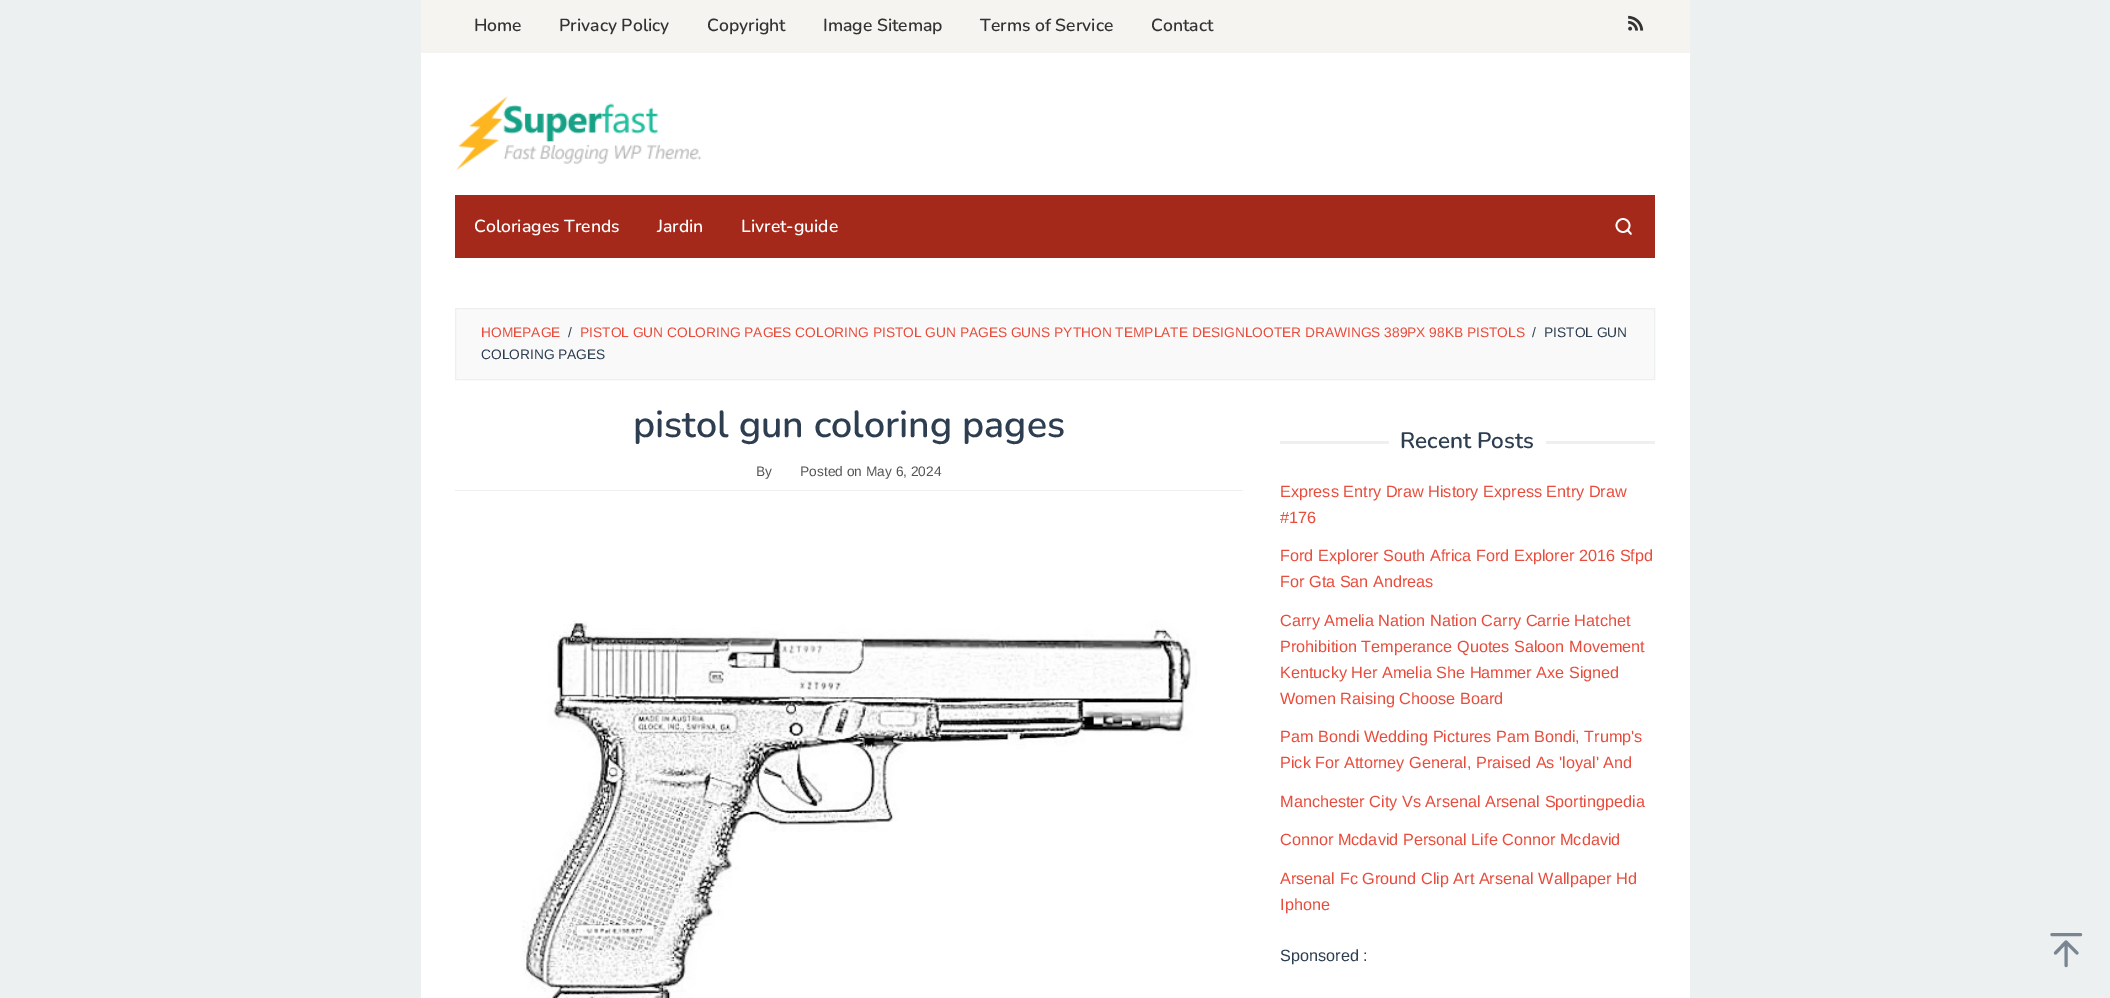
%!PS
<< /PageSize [2110 998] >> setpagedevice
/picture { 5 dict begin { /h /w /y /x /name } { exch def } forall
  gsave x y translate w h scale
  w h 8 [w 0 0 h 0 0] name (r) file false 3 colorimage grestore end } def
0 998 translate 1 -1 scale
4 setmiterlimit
0.925 0.941 0.945 setrgbcolor
0 0 2110 998 rectfill
1 setgray
421 53 1269 142 rectfill
0.965 0.957 0.945 setrgbcolor
421 0 1269 53 rectfill
/Nunito-SemiBold [17.5 0 0 -17.5 0 0] selectfont
0.2 setgray
474 31 moveto (Home) show
559 31 moveto (Privacy Policy) show
707 31 moveto (Copyright) show
823 31 moveto (Image Sitemap) show
980 31 moveto (Terms of Service) show
1151 31 moveto (Contact) show
(img1.rgb) 1628 15 16 16 picture
(img2.rgb) 456 96 246 74 picture
1 setgray
421 195 1269 803 rectfill
0.647 0.161 0.106 setrgbcolor
455 195 1200 63 rectfill
1 setgray
474 232 moveto (Coloriages Trends) show
657 232 moveto (Jardin) show
741 232 moveto (Livret-guide) show
1.7 setlinewidth
newpath 1623 225.5 6.5 0 360 arc closepath stroke
1 setlinecap
1 setlinejoin
newpath 1631 234 moveto 1627.5 230 lineto stroke
0.976 setgray
newpath 455.5 308.5 moveto 1654.5 308.5 lineto 1654.5 379.5 lineto 455.5 379.5 lineto closepath gsave fill grestore
0.925 0.941 0.945 setrgbcolor
1 setlinewidth
0 setlinecap
0 setlinejoin
stroke
/LiberationSans-Regular [13.75 0 0 -13.75 0 0] selectfont
0.906 0.298 0.235 setrgbcolor
481 337 moveto (HOMEPAGE) show
0.173 0.243 0.314 setrgbcolor
568 337 moveto (/) show
0.906 0.298 0.235 setrgbcolor
580 337 moveto (PISTOL GUN COLORING PAGES COLORING PISTOL GUN PAGES GUNS PYTHON TEMPLATE DESIGNLOOTER DRAWINGS 389PX 98KB PISTOLS) show
0.173 0.243 0.314 setrgbcolor
1532 337 moveto (/) show
1544 337 moveto (PISTOL GUN) show
481 359 moveto (COLORING PAGES) show
0.925 0.941 0.945 setrgbcolor
455 490 788 1 rectfill
/Nunito-SemiBold [37.5 0 0 -37.5 0 0] selectfont
0.173 0.243 0.314 setrgbcolor
633 437 moveto (pistol gun coloring pages) show
/LiberationSans-Regular [13.75 0 0 -13.75 0 0] selectfont
0.333 setgray
756 476 moveto (By) show
800 476 moveto (Posted on May 6, 2024) show
(img3.rgb) 522 620 675 378 picture
0.925 0.941 0.945 setrgbcolor
1280 441 109 3 rectfill
/Nunito-SemiBold [22.5 0 0 -22.5 0 0] selectfont
0.173 0.243 0.314 setrgbcolor
1400 448 moveto (Recent Posts) show
0.925 0.941 0.945 setrgbcolor
1546 441 109 3 rectfill
/LiberationSans-Regular [16.25 0 0 -16.25 0 0] selectfont
0.906 0.298 0.235 setrgbcolor
1280 497 moveto (Express Entry Draw History Express Entry Draw) show
1280 523 moveto (#176) show
1280 561 moveto (Ford Explorer South Africa Ford Explorer 2016 Sfpd) show
1280 587 moveto (For Gta San Andreas) show
1280 626 moveto (Carry Amelia Nation Nation Carry Carrie Hatchet) show
1280 652 moveto (Prohibition Temperance Quotes Saloon Movement) show
1280 678 moveto (Kentucky Her Amelia She Hammer Axe Signed) show
1280 704 moveto (Women Raising Choose Board) show
1280 742 moveto (Pam Bondi Wedding Pictures Pam Bondi, Trump's) show
1280 768 moveto (Pick For Attorney General, Praised As 'loyal' And) show
1280 807 moveto (Manchester City Vs Arsenal Arsenal Sportingpedia) show
1280 845 moveto (Connor Mcdavid Personal Life Connor Mcdavid) show
1280 884 moveto (Arsenal Fc Ground Clip Art Arsenal Wallpaper Hd) show
1280 910 moveto (Iphone) show
0.173 0.243 0.314 setrgbcolor
1280 961 moveto (Sponsored :) show
0.475 0.522 0.565 setrgbcolor
3.1 setlinewidth
1 setlinecap
1 setlinejoin
newpath 2066 965.5 moveto 2066 942 lineto 2055.5 953 moveto 2066 942 lineto 2077 953 lineto 2052 934.5 moveto 2080.5 934.5 lineto stroke
showpage
